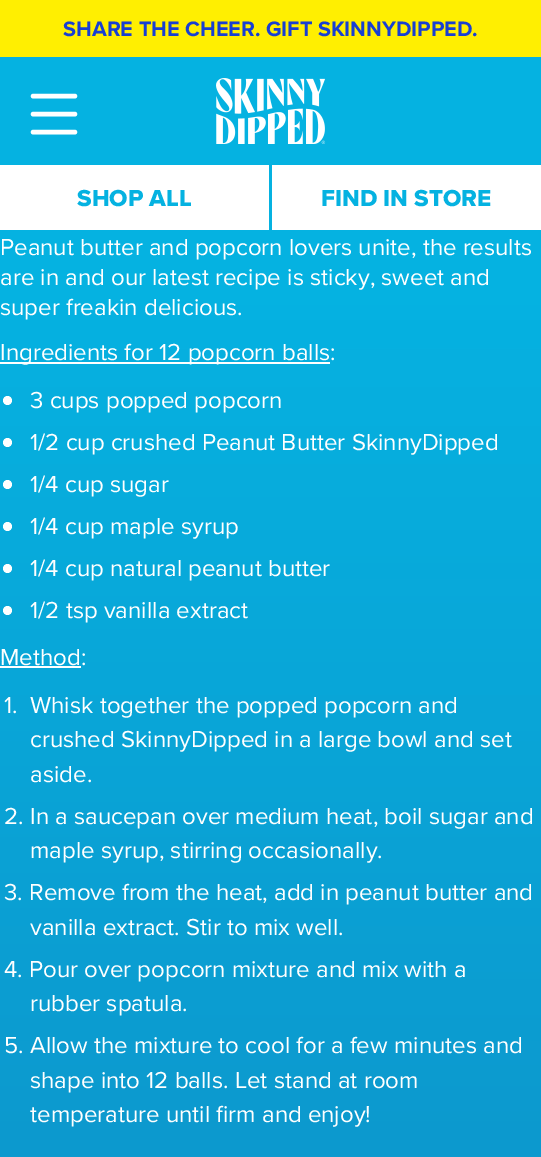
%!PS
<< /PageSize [541 1157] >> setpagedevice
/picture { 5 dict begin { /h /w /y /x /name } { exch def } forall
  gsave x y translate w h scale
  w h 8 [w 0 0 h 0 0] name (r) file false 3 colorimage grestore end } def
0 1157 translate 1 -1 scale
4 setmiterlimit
1 setgray
0 0 541 1157 rectfill
gsave newpath 0 233 moveto 541 233 lineto 541 1157 lineto 0 1157 lineto closepath clip newpath
<< /ShadingType 2 /ColorSpace /DeviceRGB /Coords [271 -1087 271 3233] /Extend [true true] /Function << /FunctionType 3 /Domain [0 1] /Functions [<< /FunctionType 2 /Domain [0 1] /C0 [0.02 0.698 0.882] /C1 [0.02 0.698 0.882] /N 1 >> << /FunctionType 2 /Domain [0 1] /C0 [0.02 0.698 0.882] /C1 [0.125 0.361 0.631] /N 1 >>] /Bounds [0.32] /Encode [0 1 0 1] >> >> shfill grestore
1 0.937 0.004 setrgbcolor
0 0 541 57 rectfill
/ProximaNova-Bold [21.6 0 0 -21.6 0 0] selectfont
0.094 0.247 0.827 setrgbcolor
63 36 moveto (SHARE THE CHEER. GIFT SKINNYDIPPED.) show
0.02 0.698 0.882 setrgbcolor
0 57 541 108 rectfill
1 setgray
4.5 setlinewidth
1 setlinecap
1 setlinejoin
newpath 33 114 moveto 75 114 lineto 33 96 moveto 75 96 lineto 33 132 moveto 75 132 lineto stroke
(img1.rgb) 216 78 110 66 picture
0.02 0.698 0.882 setrgbcolor
0 230 541 3 rectfill
269 165 3 65 rectfill
/ProximaNova-ExtraBold [24 0 0 -24 0 0] selectfont
77 206 moveto (SHOP ALL) show
321 206 moveto (FIND IN STORE) show
/ProximaNova-Regular [24 0 0 -24 0 0] selectfont
1 setgray
0 255 moveto (Peanut butter and popcorn lovers unite, the results) show
0 285 moveto (are in and our latest recipe is sticky, sweet and) show
0 315 moveto (super freakin delicious.) show
0 362 330 2 rectfill
0 360 moveto (Ingredients for 12 popcorn balls:) show
newpath 7.5 400.5 4.5 0 360 arc closepath fill
30 408 moveto (3 cups popped popcorn) show
newpath 7.5 442.5 4.5 0 360 arc closepath fill
30 450 moveto (1/2 cup crushed Peanut Butter SkinnyDipped) show
newpath 7.5 484.5 4.5 0 360 arc closepath fill
30 492 moveto (1/4 cup sugar) show
newpath 7.5 526.5 4.5 0 360 arc closepath fill
30 534 moveto (1/4 cup maple syrup) show
newpath 7.5 568.5 4.5 0 360 arc closepath fill
30 576 moveto (1/4 cup natural peanut butter) show
newpath 7.5 610.5 4.5 0 360 arc closepath fill
30 618 moveto (1/2 tsp vanilla extract) show
0 665 moveto (Method:) show
0 666 81 2 rectfill
4 713 moveto (1.) show
30 713 moveto (Whisk together the popped popcorn and) show
30 747 moveto (crushed SkinnyDipped in a large bowl and set) show
30 782 moveto (aside.) show
4 824 moveto (2. In a saucepan over medium heat, boil sugar and) show
30 858 moveto (maple syrup, stirring occasionally.) show
4 900 moveto (3. Remove from the heat, add in peanut butter and) show
30 935 moveto (vanilla extract. Stir to mix well.) show
4 977 moveto (4. Pour over popcorn mixture and mix with a) show
30 1011 moveto (rubber spatula.) show
4 1053 moveto (5. Allow the mixture to cool for a few minutes and) show
30 1088 moveto (shape into 12 balls. Let stand at room) show
30 1122 moveto (temperature until firm and enjoy!) show
showpage
